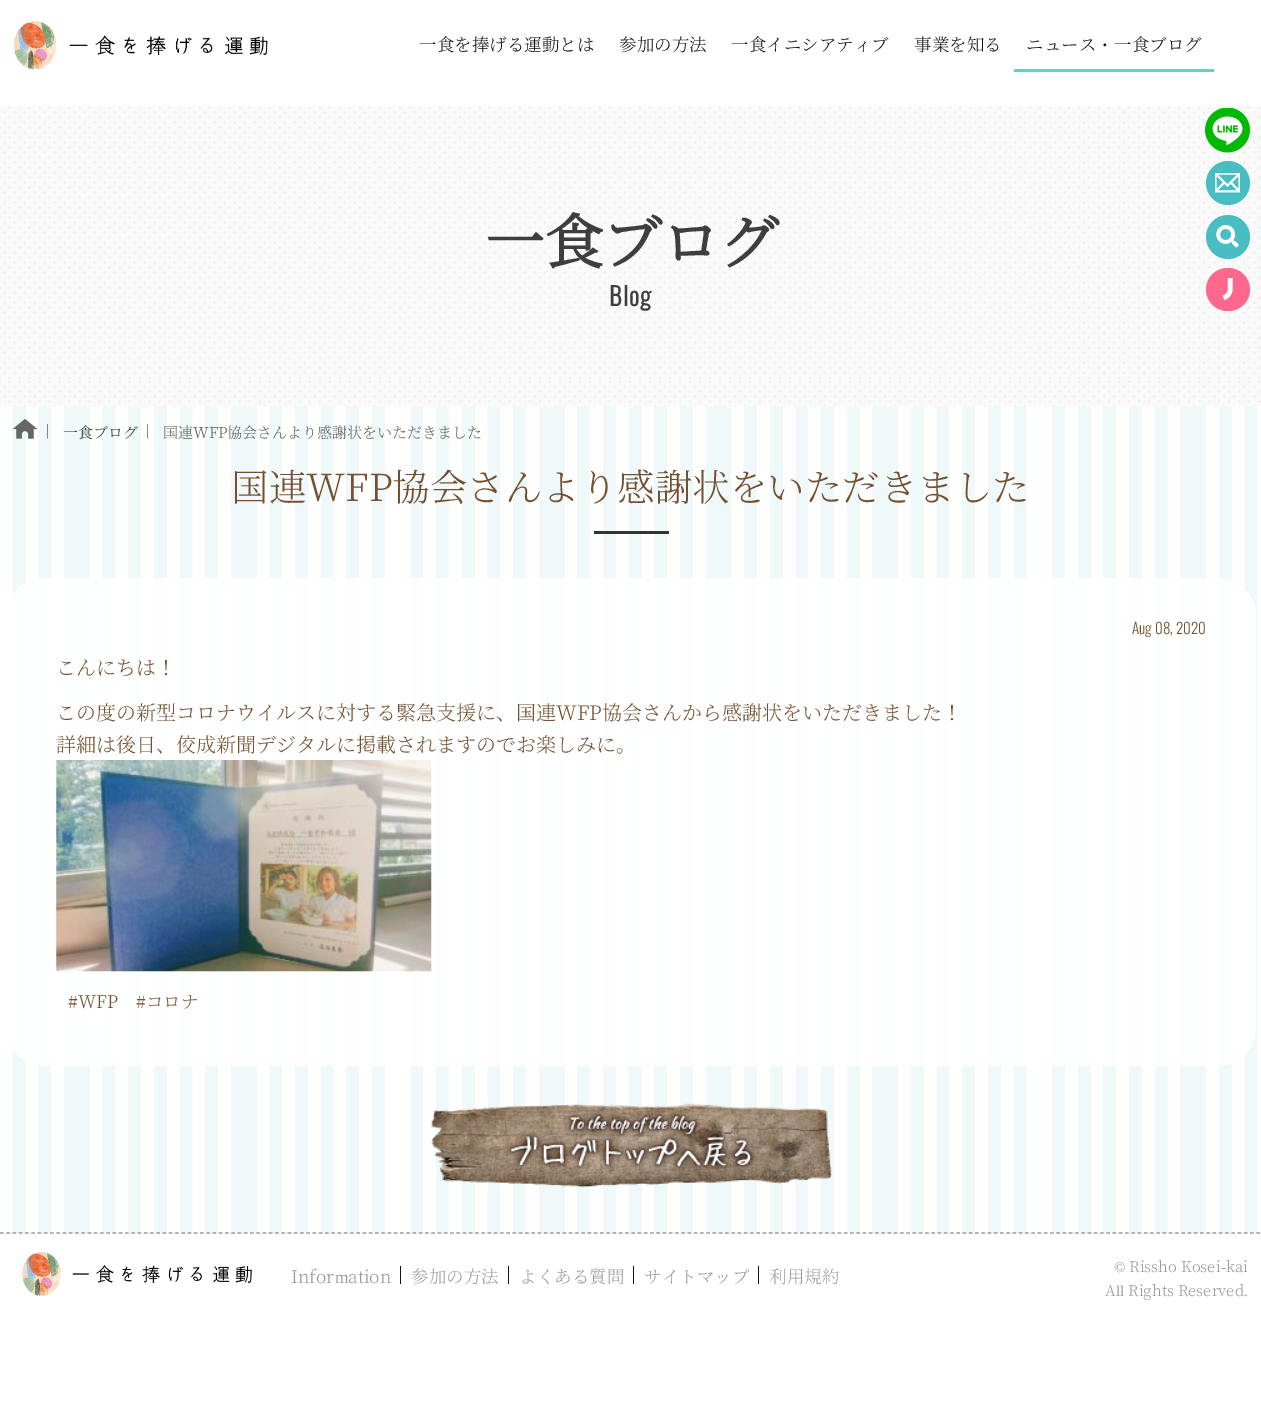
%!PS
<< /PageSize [1261 1425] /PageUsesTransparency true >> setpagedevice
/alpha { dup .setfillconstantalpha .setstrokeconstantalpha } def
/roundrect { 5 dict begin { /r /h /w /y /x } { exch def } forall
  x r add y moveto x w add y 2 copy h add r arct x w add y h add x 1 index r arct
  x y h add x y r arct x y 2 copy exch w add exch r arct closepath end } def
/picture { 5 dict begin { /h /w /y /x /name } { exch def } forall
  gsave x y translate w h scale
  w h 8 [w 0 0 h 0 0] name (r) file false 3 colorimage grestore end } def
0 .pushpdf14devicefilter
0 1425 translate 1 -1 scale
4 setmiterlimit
1 setgray
0 0 1261 1425 rectfill
(img1.rgb) 14 21 254 49 picture
/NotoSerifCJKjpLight-Light [17.5 0 0 -17.5 0 0] selectfont
0.067 setgray
419 51 moveto (一食を捧げる運動とは) show
619 51 moveto (参加の方法) show
731 51 moveto (一食イニシアティブ) show
914 51 moveto (事業を知る) show
1026 51 moveto (ニュース) show
/WenQuanYiZenHei-Medium [17.5 0 0 -17.5 0 0] selectfont
1096 51 moveto (・) show
/NotoSerifCJKjpLight-Light [17.5 0 0 -17.5 0 0] selectfont
1114 51 moveto (一食ブログ) show
0.282 0.871 0.761 setrgbcolor
1014 69 200 3 rectfill
gsave newpath 13 406 moveto 1257 406 lineto 1257 1233 lineto 13 1233 lineto closepath clip newpath
<< /ShadingType 2 /ColorSpace /DeviceRGB /Coords [0 863 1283 863] /Extend [true true] /Function << /FunctionType 3 /Domain [0 1] /Functions [<< /FunctionType 2 /Domain [0 1] /C0 [1 1 1] /C1 [1 1 1] /N 1 >> << /FunctionType 2 /Domain [0 1] /C0 [0.937 0.976 0.98] /C1 [0.937 0.976 0.98] /N 1 >> << /FunctionType 2 /Domain [0 1] /C0 [1 1 1] /C1 [1 1 1] /N 1 >> << /FunctionType 2 /Domain [0 1] /C0 [0.937 0.976 0.98] /C1 [0.937 0.976 0.98] /N 1 >> << /FunctionType 2 /Domain [0 1] /C0 [1 1 1] /C1 [1 1 1] /N 1 >> << /FunctionType 2 /Domain [0 1] /C0 [0.937 0.976 0.98] /C1 [0.937 0.976 0.98] /N 1 >> << /FunctionType 2 /Domain [0 1] /C0 [0.937 0.976 0.98] /C1 [0.937 0.976 0.98] /N 1 >> << /FunctionType 2 /Domain [0 1] /C0 [1 1 1] /C1 [1 1 1] /N 1 >> << /FunctionType 2 /Domain [0 1] /C0 [0.937 0.976 0.98] /C1 [0.937 0.976 0.98] /N 1 >> << /FunctionType 2 /Domain [0 1] /C0 [1 1 1] /C1 [1 1 1] /N 1 >> << /FunctionType 2 /Domain [0 1] /C0 [0.937 0.976 0.98] /C1 [0.937 0.976 0.98] /N 1 >> << /FunctionType 2 /Domain [0 1] /C0 [1 1 1] /C1 [1 1 1] /N 1 >> << /FunctionType 2 /Domain [0 1] /C0 [0.937 0.976 0.98] /C1 [0.937 0.976 0.98] /N 1 >> << /FunctionType 2 /Domain [0 1] /C0 [1 1 1] /C1 [1 1 1] /N 1 >> << /FunctionType 2 /Domain [0 1] /C0 [0.937 0.976 0.98] /C1 [0.937 0.976 0.98] /N 1 >> << /FunctionType 2 /Domain [0 1] /C0 [1 1 1] /C1 [1 1 1] /N 1 >> << /FunctionType 2 /Domain [0 1] /C0 [0.937 0.976 0.98] /C1 [0.937 0.976 0.98] /N 1 >> << /FunctionType 2 /Domain [0 1] /C0 [1 1 1] /C1 [1 1 1] /N 1 >> << /FunctionType 2 /Domain [0 1] /C0 [0.937 0.976 0.98] /C1 [0.937 0.976 0.98] /N 1 >> << /FunctionType 2 /Domain [0 1] /C0 [0.937 0.976 0.98] /C1 [0.937 0.976 0.98] /N 1 >> << /FunctionType 2 /Domain [0 1] /C0 [1 1 1] /C1 [1 1 1] /N 1 >> << /FunctionType 2 /Domain [0 1] /C0 [0.937 0.976 0.98] /C1 [0.937 0.976 0.98] /N 1 >> << /FunctionType 2 /Domain [0 1] /C0 [1 1 1] /C1 [1 1 1] /N 1 >> << /FunctionType 2 /Domain [0 1] /C0 [0.937 0.976 0.98] /C1 [0.937 0.976 0.98] /N 1 >> << /FunctionType 2 /Domain [0 1] /C0 [1 1 1] /C1 [1 1 1] /N 1 >> << /FunctionType 2 /Domain [0 1] /C0 [0.937 0.976 0.98] /C1 [0.937 0.976 0.98] /N 1 >> << /FunctionType 2 /Domain [0 1] /C0 [1 1 1] /C1 [1 1 1] /N 1 >> << /FunctionType 2 /Domain [0 1] /C0 [0.937 0.976 0.98] /C1 [0.937 0.976 0.98] /N 1 >> << /FunctionType 2 /Domain [0 1] /C0 [1 1 1] /C1 [1 1 1] /N 1 >> << /FunctionType 2 /Domain [0 1] /C0 [0.937 0.976 0.98] /C1 [0.937 0.976 0.98] /N 1 >> << /FunctionType 2 /Domain [0 1] /C0 [1 1 1] /C1 [1 1 1] /N 1 >> << /FunctionType 2 /Domain [0 1] /C0 [1 1 1] /C1 [1 1 1] /N 1 >> << /FunctionType 2 /Domain [0 1] /C0 [0.937 0.976 0.98] /C1 [0.937 0.976 0.98] /N 1 >> << /FunctionType 2 /Domain [0 1] /C0 [1 1 1] /C1 [1 1 1] /N 1 >> << /FunctionType 2 /Domain [0 1] /C0 [0.937 0.976 0.98] /C1 [0.937 0.976 0.98] /N 1 >> << /FunctionType 2 /Domain [0 1] /C0 [1 1 1] /C1 [1 1 1] /N 1 >> << /FunctionType 2 /Domain [0 1] /C0 [0.937 0.976 0.98] /C1 [0.937 0.976 0.98] /N 1 >> << /FunctionType 2 /Domain [0 1] /C0 [1 1 1] /C1 [1 1 1] /N 1 >> << /FunctionType 2 /Domain [0 1] /C0 [0.937 0.976 0.98] /C1 [0.937 0.976 0.98] /N 1 >> << /FunctionType 2 /Domain [0 1] /C0 [1 1 1] /C1 [1 1 1] /N 1 >> << /FunctionType 2 /Domain [0 1] /C0 [0.937 0.976 0.98] /C1 [0.937 0.976 0.98] /N 1 >> << /FunctionType 2 /Domain [0 1] /C0 [1 1 1] /C1 [1 1 1] /N 1 >> << /FunctionType 2 /Domain [0 1] /C0 [0.937 0.976 0.98] /C1 [0.937 0.976 0.98] /N 1 >> << /FunctionType 2 /Domain [0 1] /C0 [0.937 0.976 0.98] /C1 [0.937 0.976 0.98] /N 1 >> << /FunctionType 2 /Domain [0 1] /C0 [1 1 1] /C1 [1 1 1] /N 1 >> << /FunctionType 2 /Domain [0 1] /C0 [0.937 0.976 0.98] /C1 [0.937 0.976 0.98] /N 1 >> << /FunctionType 2 /Domain [0 1] /C0 [1 1 1] /C1 [1 1 1] /N 1 >> << /FunctionType 2 /Domain [0 1] /C0 [0.937 0.976 0.98] /C1 [0.937 0.976 0.98] /N 1 >> << /FunctionType 2 /Domain [0 1] /C0 [1 1 1] /C1 [1 1 1] /N 1 >> << /FunctionType 2 /Domain [0 1] /C0 [0.937 0.976 0.98] /C1 [0.937 0.976 0.98] /N 1 >> << /FunctionType 2 /Domain [0 1] /C0 [1 1 1] /C1 [1 1 1] /N 1 >> << /FunctionType 2 /Domain [0 1] /C0 [0.937 0.976 0.98] /C1 [0.937 0.976 0.98] /N 1 >> << /FunctionType 2 /Domain [0 1] /C0 [1 1 1] /C1 [1 1 1] /N 1 >> << /FunctionType 2 /Domain [0 1] /C0 [0.937 0.976 0.98] /C1 [0.937 0.976 0.98] /N 1 >> << /FunctionType 2 /Domain [0 1] /C0 [1 1 1] /C1 [1 1 1] /N 1 >> << /FunctionType 2 /Domain [0 1] /C0 [0.937 0.976 0.98] /C1 [0.937 0.976 0.98] /N 1 >> << /FunctionType 2 /Domain [0 1] /C0 [0.937 0.976 0.98] /C1 [0.937 0.976 0.98] /N 1 >> << /FunctionType 2 /Domain [0 1] /C0 [1 1 1] /C1 [1 1 1] /N 1 >> << /FunctionType 2 /Domain [0 1] /C0 [0.937 0.976 0.98] /C1 [0.937 0.976 0.98] /N 1 >> << /FunctionType 2 /Domain [0 1] /C0 [1 1 1] /C1 [1 1 1] /N 1 >> << /FunctionType 2 /Domain [0 1] /C0 [0.937 0.976 0.98] /C1 [0.937 0.976 0.98] /N 1 >> << /FunctionType 2 /Domain [0 1] /C0 [1 1 1] /C1 [1 1 1] /N 1 >> << /FunctionType 2 /Domain [0 1] /C0 [0.937 0.976 0.98] /C1 [0.937 0.976 0.98] /N 1 >> << /FunctionType 2 /Domain [0 1] /C0 [1 1 1] /C1 [1 1 1] /N 1 >> << /FunctionType 2 /Domain [0 1] /C0 [0.937 0.976 0.98] /C1 [0.937 0.976 0.98] /N 1 >> << /FunctionType 2 /Domain [0 1] /C0 [1 1 1] /C1 [1 1 1] /N 1 >> << /FunctionType 2 /Domain [0 1] /C0 [0.937 0.976 0.98] /C1 [0.937 0.976 0.98] /N 1 >> << /FunctionType 2 /Domain [0 1] /C0 [1 1 1] /C1 [1 1 1] /N 1 >> << /FunctionType 2 /Domain [0 1] /C0 [0.937 0.976 0.98] /C1 [0.937 0.976 0.98] /N 1 >> << /FunctionType 2 /Domain [0 1] /C0 [0.937 0.976 0.98] /C1 [0.937 0.976 0.98] /N 1 >> << /FunctionType 2 /Domain [0 1] /C0 [1 1 1] /C1 [1 1 1] /N 1 >> << /FunctionType 2 /Domain [0 1] /C0 [0.937 0.976 0.98] /C1 [0.937 0.976 0.98] /N 1 >> << /FunctionType 2 /Domain [0 1] /C0 [1 1 1] /C1 [1 1 1] /N 1 >> << /FunctionType 2 /Domain [0 1] /C0 [0.937 0.976 0.98] /C1 [0.937 0.976 0.98] /N 1 >> << /FunctionType 2 /Domain [0 1] /C0 [1 1 1] /C1 [1 1 1] /N 1 >> << /FunctionType 2 /Domain [0 1] /C0 [0.937 0.976 0.98] /C1 [0.937 0.976 0.98] /N 1 >> << /FunctionType 2 /Domain [0 1] /C0 [1 1 1] /C1 [1 1 1] /N 1 >> << /FunctionType 2 /Domain [0 1] /C0 [0.937 0.976 0.98] /C1 [0.937 0.976 0.98] /N 1 >> << /FunctionType 2 /Domain [0 1] /C0 [1 1 1] /C1 [1 1 1] /N 1 >> << /FunctionType 2 /Domain [0 1] /C0 [0.937 0.976 0.98] /C1 [0.937 0.976 0.98] /N 1 >> << /FunctionType 2 /Domain [0 1] /C0 [1 1 1] /C1 [1 1 1] /N 1 >> << /FunctionType 2 /Domain [0 1] /C0 [1 1 1] /C1 [1 1 1] /N 1 >> << /FunctionType 2 /Domain [0 1] /C0 [0.937 0.976 0.98] /C1 [0.937 0.976 0.98] /N 1 >> << /FunctionType 2 /Domain [0 1] /C0 [1 1 1] /C1 [1 1 1] /N 1 >> << /FunctionType 2 /Domain [0 1] /C0 [0.937 0.976 0.98] /C1 [0.937 0.976 0.98] /N 1 >> << /FunctionType 2 /Domain [0 1] /C0 [1 1 1] /C1 [1 1 1] /N 1 >> << /FunctionType 2 /Domain [0 1] /C0 [0.937 0.976 0.98] /C1 [0.937 0.976 0.98] /N 1 >> << /FunctionType 2 /Domain [0 1] /C0 [1 1 1] /C1 [1 1 1] /N 1 >> << /FunctionType 2 /Domain [0 1] /C0 [0.937 0.976 0.98] /C1 [0.937 0.976 0.98] /N 1 >> << /FunctionType 2 /Domain [0 1] /C0 [1 1 1] /C1 [1 1 1] /N 1 >> << /FunctionType 2 /Domain [0 1] /C0 [0.937 0.976 0.98] /C1 [0.937 0.976 0.98] /N 1 >> << /FunctionType 2 /Domain [0 1] /C0 [1 1 1] /C1 [1 1 1] /N 1 >> << /FunctionType 2 /Domain [0 1] /C0 [0.937 0.976 0.98] /C1 [0.937 0.976 0.98] /N 1 >> << /FunctionType 2 /Domain [0 1] /C0 [0.937 0.976 0.98] /C1 [0.937 0.976 0.98] /N 1 >> << /FunctionType 2 /Domain [0 1] /C0 [1 1 1] /C1 [1 1 1] /N 1 >> << /FunctionType 2 /Domain [0 1] /C0 [0.937 0.976 0.98] /C1 [0.937 0.976 0.98] /N 1 >> << /FunctionType 2 /Domain [0 1] /C0 [1 1 1] /C1 [1 1 1] /N 1 >> << /FunctionType 2 /Domain [0 1] /C0 [0.937 0.976 0.98] /C1 [0.937 0.976 0.98] /N 1 >> << /FunctionType 2 /Domain [0 1] /C0 [1 1 1] /C1 [1 1 1] /N 1 >> << /FunctionType 2 /Domain [0 1] /C0 [0.937 0.976 0.98] /C1 [0.937 0.976 0.98] /N 1 >>] /Bounds [0.01 0.02 0.03 0.04 0.05 0.06 0.07 0.08 0.09 0.1 0.11 0.12 0.13 0.14 0.15 0.16 0.17 0.18 0.19 0.2 0.21 0.22 0.23 0.24 0.25 0.26 0.27 0.28 0.29 0.3 0.31 0.32 0.33 0.34 0.35 0.36 0.37 0.38 0.39 0.4 0.41 0.42 0.43 0.44 0.45 0.46 0.47 0.48 0.49 0.5 0.51 0.52 0.53 0.54 0.55 0.56 0.57 0.58 0.59 0.6 0.61 0.62 0.63 0.64 0.65 0.66 0.67 0.68 0.69 0.7 0.71 0.72 0.73 0.74 0.75 0.76 0.77 0.78 0.79 0.8 0.81 0.82 0.83 0.84 0.85 0.86 0.87 0.88 0.89 0.9 0.91 0.92 0.93 0.94 0.95 0.96 0.97 0.98 0.99] /Encode [0 1 0 1 0 1 0 1 0 1 0 1 0 1 0 1 0 1 0 1 0 1 0 1 0 1 0 1 0 1 0 1 0 1 0 1 0 1 0 1 0 1 0 1 0 1 0 1 0 1 0 1 0 1 0 1 0 1 0 1 0 1 0 1 0 1 0 1 0 1 0 1 0 1 0 1 0 1 0 1 0 1 0 1 0 1 0 1 0 1 0 1 0 1 0 1 0 1 0 1 0 1 0 1 0 1 0 1 0 1 0 1 0 1 0 1 0 1 0 1 0 1 0 1 0 1 0 1 0 1 0 1 0 1 0 1 0 1 0 1 0 1 0 1 0 1 0 1 0 1 0 1 0 1 0 1 0 1 0 1 0 1 0 1 0 1 0 1 0 1 0 1 0 1 0 1 0 1 0 1 0 1 0 1 0 1 0 1 0 1 0 1 0 1 0 1 0 1 0 1] >> >> shfill grestore
(img6.rgb) 0 106 1261 301 picture
(img2.rgb) 1205 108 45 45 picture
0.282 0.745 0.761 setrgbcolor
newpath 1228 183 22 0 360 arc closepath fill
(img3.rgb) 1215 173 25 20 picture
newpath 1228 237 22 0 360 arc closepath fill
(img4.rgb) 1216 225 23 23 picture
1 0.404 0.553 setrgbcolor
1206 268 44 43 21.5 roundrect fill
(img5.rgb) 1222 278 11 22 picture
/NotoSerifCJKjpLight-Bold [59.5 0 0 -59.5 0 0] selectfont
0.243 setgray
485 264 moveto -1 0 (一食ブログ) ashow
/Oswald-Bold [25 0 0 -25 0 0] selectfont
609 306 moveto 1 0 (Blog) ashow
(img7.rgb) 13 419 25 20 picture
/LiberationSerif-Regular [16 0 0 -16 0 0] selectfont
0.357 setgray
46 435 moveto (|) show
/NotoSerifCJKjpLight-Light [15 0 0 -15 0 0] selectfont
0.2 setgray
63 438 moveto (一食ブログ) show
/LiberationSerif-Regular [16 0 0 -16 0 0] selectfont
0.357 setgray
146 435 moveto (|) show
/NotoSerifCJKjpLight-Light [15 0 0 -15 0 0] selectfont
163 438 moveto (国連WFP協会さんより感謝状をいただきました) show
/NotoSerifCJKjpLight-Light [37.5 0 0 -37.5 0 0] selectfont
0.455 0.314 0.188 setrgbcolor
231 501 moveto (国連WFP協会さんより感謝状をいただきました) show
0.2 setgray
594 531 75 3 rectfill
0.88 alpha
1 setgray
6 578 1250 488 38 roundrect fill
/Oswald-Light [15 0 0 -15 0 0] selectfont
1 alpha
0.455 0.314 0.188 setrgbcolor
1132 634 moveto (Aug 08, 2020) show
/NotoSerifCJKjpLight-Light [20 0 0 -20 0 0] selectfont
56 675 moveto (こんにちは！) show
56 720 moveto (この度の新型コロナウイルスに対する緊急支援に、国連WFP協会さんから感謝状をいただきました！) show
56 752 moveto (詳細は後日、佼成新聞デジタルに掲載されますのでお楽しみに。) show
(img8.rgb) 56 760 376 212 picture
/NotoSerifCJKjpLight-Light [17.5 0 0 -17.5 0 0] selectfont
68 1008 moveto (#WFP) show
136 1008 moveto (#コロナ) show
(img9.rgb) 431 1103 401 85 picture
0.6 setgray
1.2 setlinewidth
[3.75 2.5] 0 setdash
newpath 0 1233 moveto 1261 1233 lineto stroke
(img10.rgb) 22 1251 230 45 picture
291 1283 moveto (Infor) show
/LiberationSerif-Regular [17.5 0 0 -17.5 0 0] selectfont
335 1283 moveto (m) show
/NotoSerifCJKjpLight-Light [17.5 0 0 -17.5 0 0] selectfont
348 1283 moveto (ation) show
0.067 setgray
400 1266 1 18 rectfill
0.6 setgray
411 1283 moveto (参加の方法) show
0.067 setgray
508 1266 1 18 rectfill
0.6 setgray
519 1283 moveto (よくある質問) show
0.067 setgray
633 1266 1 18 rectfill
0.6 setgray
644 1283 moveto (サイトマップ) show
0.067 setgray
758 1266 1 18 rectfill
0.6 setgray
769 1283 moveto (利用規約) show
/LiberationSerif-Regular [15 0 0 -15 0 0] selectfont
1114 1272 moveto (©) show
/NotoSerifCJKjpLight-Light [15 0 0 -15 0 0] selectfont
1129 1272 moveto (Rissho Kosei) show
/LiberationSerif-Regular [15 0 0 -15 0 0] selectfont
1221 1272 moveto (-) show
/NotoSerifCJKjpLight-Light [15 0 0 -15 0 0] selectfont
1226 1272 moveto (kai) show
1105 1296 moveto (A) show
/LiberationSerif-Regular [15 0 0 -15 0 0] selectfont
1116 1296 moveto (ll) show
/NotoSerifCJKjpLight-Light [15 0 0 -15 0 0] selectfont
1128 1296 moveto (Rights Reserved) show
/LiberationSerif-Regular [15 0 0 -15 0 0] selectfont
1244 1296 moveto (.) show
.poppdf14devicefilter showpage
